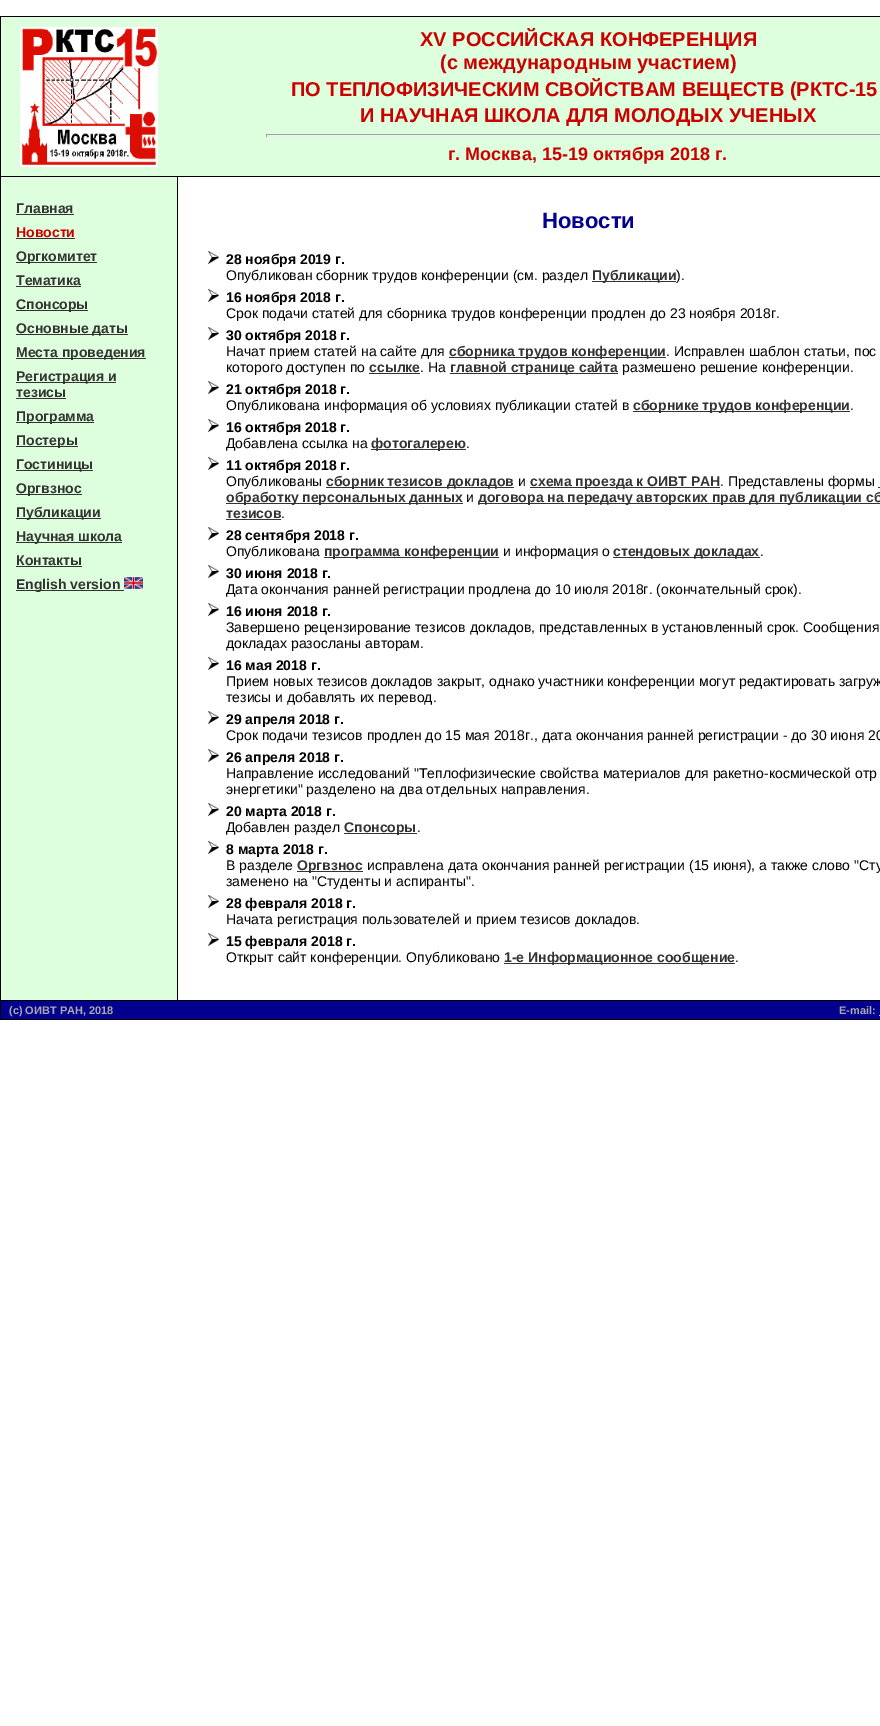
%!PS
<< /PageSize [880 1726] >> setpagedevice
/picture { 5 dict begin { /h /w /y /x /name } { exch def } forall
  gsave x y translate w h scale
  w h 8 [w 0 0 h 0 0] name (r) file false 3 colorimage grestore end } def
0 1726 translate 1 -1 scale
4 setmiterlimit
1 setgray
0 0 880 1726 rectfill
0 setgray
0 16 880 1 rectfill
0 17 1 159 rectfill
0.867 1 0.867 setrgbcolor
1 17 879 159 rectfill
(img1.rgb) 20 27 138 140 picture
/LiberationSans-Bold [20 0 0 -20 0 0] selectfont
0.8 0 0 setrgbcolor
420 46 moveto (XV РОССИЙСКАЯ КОНФЕРЕНЦИЯ) show
440 69 moveto (\(с международным участием\)) show
291 96 moveto (ПО ТЕПЛОФИЗИЧЕСКИМ СВОЙСТВАМ ВЕЩЕСТВ \(РКТС-15) show
360 122 moveto (И НАУЧНАЯ ШКОЛА ДЛЯ МОЛОДЫХ УЧЕНЫХ) show
0.624 setgray
266 134 614 1 rectfill
0.933 setgray
266 136 614 1 rectfill
0.624 setgray
266 134 1 3 rectfill
/LiberationSans-Bold [18 0 0 -18 0 0] selectfont
0.8 0 0 setrgbcolor
448 160 moveto (г. Москва, 15-19 октября 2018 г.) show
0 setgray
0 176 880 1 rectfill
0 177 1 823 rectfill
0.867 1 0.867 setrgbcolor
1 177 176 823 rectfill
0.933 0.933 1 setrgbcolor
1 177 1 1 rectfill
0 setgray
177 177 1 823 rectfill
/LiberationSans-Bold [14 0 0 -14 0 0] selectfont
0.2 setgray
16 213 moveto (Главная) show
16 214 58 1 rectfill
0.8 0 0 setrgbcolor
16 237 moveto (Новости) show
0.2 setgray
16 238 59 1 rectfill
16 262 81 1 rectfill
16 261 moveto (Оргкомитет) show
16 285 moveto (Тематика) show
16 286 65 1 rectfill
16 310 72 1 rectfill
16 309 moveto (Спонсоры) show
16 334 112 1 rectfill
16 333 moveto (Основные даты) show
16 358 130 1 rectfill
16 357 moveto (Места проведения) show
16 382 100 1 rectfill
16 381 moveto (Регистрация и) show
16 397 moveto (тезисы) show
16 398 50 1 rectfill
16 422 78 1 rectfill
16 421 moveto (Программа) show
16 446 62 1 rectfill
16 445 moveto (Постеры) show
16 470 77 1 rectfill
16 469 moveto (Гостиницы) show
16 494 66 1 rectfill
16 493 moveto (Оргвзнос) show
16 518 85 1 rectfill
16 517 moveto (Публикации) show
16 542 106 1 rectfill
16 541 moveto (Научная школа) show
16 565 moveto (Контакты) show
16 566 66 1 rectfill
16 590 108 1 rectfill
16 589 moveto (English version) show
(img2.rgb) 124 577 19 12 picture
0.933 0.933 1 setrgbcolor
169 588 1 1 rectfill
/LiberationSans-Bold [22 0 0 -22 0 0] selectfont
0.012 0 0.561 setrgbcolor
542 228 moveto (Новости) show
(img3.rgb) 208 251 11 13 picture
/LiberationSans-Bold [14 0 0 -14 0 0] selectfont
0 setgray
226 264 moveto (28 ноября 2019 г.) show
/LiberationSans-Regular [14 0 0 -14 0 0] selectfont
226 280 moveto (Опубликован сборник трудов конференции \(см. раздел) show
0.2 setgray
592 281 84 1 rectfill
/LiberationSans-Bold [14 0 0 -14 0 0] selectfont
592 280 moveto (Публикации) show
/LiberationSans-Regular [14 0 0 -14 0 0] selectfont
0 setgray
676 280 moveto (\).) show
(img3.rgb) 208 289 11 13 picture
/LiberationSans-Bold [14 0 0 -14 0 0] selectfont
226 302 moveto (16 ноября 2018 г.) show
/LiberationSans-Regular [14 0 0 -14 0 0] selectfont
226 318 moveto (Срок подачи статей для сборника трудов конференции продлен до 23 ноября 2018г.) show
(img3.rgb) 208 327 11 13 picture
/LiberationSans-Bold [14 0 0 -14 0 0] selectfont
226 340 moveto (30 октября 2018 г.) show
/LiberationSans-Regular [14 0 0 -14 0 0] selectfont
226 356 moveto (Начат прием статей на сайте для) show
0.2 setgray
449 357 217 1 rectfill
/LiberationSans-Bold [14 0 0 -14 0 0] selectfont
449 356 moveto (сборника трудов конференции) show
/LiberationSans-Regular [14 0 0 -14 0 0] selectfont
0 setgray
666 356 moveto (. Исправлен шаблон статьи, пос) show
226 372 moveto (которого доступен по) show
/LiberationSans-Bold [14 0 0 -14 0 0] selectfont
0.2 setgray
369 372 moveto (ссылке) show
369 373 51 1 rectfill
/LiberationSans-Regular [14 0 0 -14 0 0] selectfont
0 setgray
420 372 moveto (. На) show
0.2 setgray
450 373 168 1 rectfill
/LiberationSans-Bold [14 0 0 -14 0 0] selectfont
450 372 moveto (главной странице сайта) show
/LiberationSans-Regular [14 0 0 -14 0 0] selectfont
0 setgray
622 372 moveto (размешено решение конференции.) show
(img3.rgb) 208 381 11 13 picture
/LiberationSans-Bold [14 0 0 -14 0 0] selectfont
226 394 moveto (21 октября 2018 г.) show
/LiberationSans-Regular [14 0 0 -14 0 0] selectfont
226 410 moveto (Опубликована информация об условиях публикации статей в) show
0.2 setgray
633 411 217 1 rectfill
/LiberationSans-Bold [14 0 0 -14 0 0] selectfont
633 410 moveto (сборнике трудов конференции) show
/LiberationSans-Regular [14 0 0 -14 0 0] selectfont
0 setgray
850 410 moveto (.) show
(img3.rgb) 208 419 11 13 picture
/LiberationSans-Bold [14 0 0 -14 0 0] selectfont
226 432 moveto (16 октября 2018 г.) show
/LiberationSans-Regular [14 0 0 -14 0 0] selectfont
226 448 moveto (Добавлена ссылка на) show
0.2 setgray
371 449 95 1 rectfill
/LiberationSans-Bold [14 0 0 -14 0 0] selectfont
371 448 moveto (фотогалерею) show
/LiberationSans-Regular [14 0 0 -14 0 0] selectfont
0 setgray
466 448 moveto (.) show
(img3.rgb) 208 457 11 13 picture
/LiberationSans-Bold [14 0 0 -14 0 0] selectfont
226 470 moveto (11 октября 2018 г.) show
/LiberationSans-Regular [14 0 0 -14 0 0] selectfont
226 486 moveto (Опубликованы) show
0.2 setgray
326 487 188 1 rectfill
/LiberationSans-Bold [14 0 0 -14 0 0] selectfont
326 486 moveto (сборник тезисов докладов) show
/LiberationSans-Regular [14 0 0 -14 0 0] selectfont
0 setgray
518 486 moveto (и) show
0.2 setgray
530 487 190 1 rectfill
/LiberationSans-Bold [14 0 0 -14 0 0] selectfont
530 486 moveto (схема проезда к ОИВТ РАН) show
/LiberationSans-Regular [14 0 0 -14 0 0] selectfont
0 setgray
720 486 moveto (. Представлены формы) show
0.2 setgray
226 503 237 1 rectfill
/LiberationSans-Bold [14 0 0 -14 0 0] selectfont
226 502 moveto (обработку персональных данных) show
878 487 2 1 rectfill
/LiberationSans-Regular [14 0 0 -14 0 0] selectfont
0 setgray
466 502 moveto (и) show
0.2 setgray
478 503 402 1 rectfill
/LiberationSans-Bold [14 0 0 -14 0 0] selectfont
478 502 moveto (договора на передачу авторских прав для публикации сб) show
226 518 moveto (тезисов) show
226 519 55 1 rectfill
/LiberationSans-Regular [14 0 0 -14 0 0] selectfont
0 setgray
281 518 moveto (.) show
(img3.rgb) 208 527 11 13 picture
/LiberationSans-Bold [14 0 0 -14 0 0] selectfont
226 540 moveto (28 сентября 2018 г.) show
/LiberationSans-Regular [14 0 0 -14 0 0] selectfont
226 556 moveto (Опубликована) show
0.2 setgray
324 557 175 1 rectfill
/LiberationSans-Bold [14 0 0 -14 0 0] selectfont
324 556 moveto (программа конференции) show
/LiberationSans-Regular [14 0 0 -14 0 0] selectfont
0 setgray
503 556 moveto (и информация о) show
0.2 setgray
613 557 147 1 rectfill
/LiberationSans-Bold [14 0 0 -14 0 0] selectfont
613 556 moveto (стендовых докладах) show
/LiberationSans-Regular [14 0 0 -14 0 0] selectfont
0 setgray
760 556 moveto (.) show
(img3.rgb) 208 565 11 13 picture
/LiberationSans-Bold [14 0 0 -14 0 0] selectfont
226 578 moveto (30 июня 2018 г.) show
/LiberationSans-Regular [14 0 0 -14 0 0] selectfont
226 594 moveto (Дата окончания ранней регистрации продлена до 10 июля 2018г. \(окончательный срок\).) show
(img3.rgb) 208 603 11 13 picture
/LiberationSans-Bold [14 0 0 -14 0 0] selectfont
226 616 moveto (16 июня 2018 г.) show
/LiberationSans-Regular [14 0 0 -14 0 0] selectfont
226 632 moveto (Завершено рецензирование тезисов докладов, представленных в установленный срок. Сообщения) show
226 648 moveto (докладах разосланы авторам.) show
(img3.rgb) 208 657 11 13 picture
/LiberationSans-Bold [14 0 0 -14 0 0] selectfont
226 670 moveto (16 мая 2018 г.) show
/LiberationSans-Regular [14 0 0 -14 0 0] selectfont
226 686 moveto (Прием новых тезисов докладов закрыт, однако участники конференции могут редактировать загруж) show
226 702 moveto (тезисы и добавлять их перевод.) show
(img3.rgb) 208 711 11 13 picture
/LiberationSans-Bold [14 0 0 -14 0 0] selectfont
226 724 moveto (29 апреля 2018 г.) show
/LiberationSans-Regular [14 0 0 -14 0 0] selectfont
226 740 moveto (Срок подачи тезисов продлен до 15 мая 2018г., дата окончания ранней регистрации - до 30 июня 20) show
(img3.rgb) 208 749 11 13 picture
/LiberationSans-Bold [14 0 0 -14 0 0] selectfont
226 762 moveto (26 апреля 2018 г.) show
/LiberationSans-Regular [14 0 0 -14 0 0] selectfont
226 778 moveto (Направление исследований "Теплофизические свойства материалов для ракетно-космической отр) show
226 794 moveto (энергетики" разделено на два отдельных направления.) show
(img3.rgb) 208 803 11 13 picture
/LiberationSans-Bold [14 0 0 -14 0 0] selectfont
226 816 moveto (20 марта 2018 г.) show
/LiberationSans-Regular [14 0 0 -14 0 0] selectfont
226 832 moveto (Добавлен раздел) show
0.2 setgray
344 833 73 1 rectfill
/LiberationSans-Bold [14 0 0 -14 0 0] selectfont
344 832 moveto (Спонсоры) show
/LiberationSans-Regular [14 0 0 -14 0 0] selectfont
0 setgray
417 832 moveto (.) show
(img3.rgb) 208 841 11 13 picture
/LiberationSans-Bold [14 0 0 -14 0 0] selectfont
226 854 moveto (8 марта 2018 г.) show
/LiberationSans-Regular [14 0 0 -14 0 0] selectfont
226 870 moveto (В разделе) show
0.2 setgray
297 871 66 1 rectfill
/LiberationSans-Bold [14 0 0 -14 0 0] selectfont
297 870 moveto (Оргвзнос) show
/LiberationSans-Regular [14 0 0 -14 0 0] selectfont
0 setgray
367 870 moveto (исправлена дата окончания ранней регистрации \(15 июня\), а также слово "Сту) show
226 886 moveto (заменено на "Студенты и аспиранты".) show
(img3.rgb) 208 895 11 13 picture
/LiberationSans-Bold [14 0 0 -14 0 0] selectfont
226 908 moveto (28 февраля 2018 г.) show
/LiberationSans-Regular [14 0 0 -14 0 0] selectfont
226 924 moveto (Начата регистрация пользователей и прием тезисов докладов.) show
(img3.rgb) 208 933 11 13 picture
/LiberationSans-Bold [14 0 0 -14 0 0] selectfont
226 946 moveto (15 февраля 2018 г.) show
/LiberationSans-Regular [14 0 0 -14 0 0] selectfont
226 962 moveto (Открыт сайт конференции. Опубликовано) show
0.2 setgray
504 963 231 1 rectfill
/LiberationSans-Bold [14 0 0 -14 0 0] selectfont
504 962 moveto (1-е Информационное сообщение) show
/LiberationSans-Regular [14 0 0 -14 0 0] selectfont
0 setgray
735 962 moveto (.) show
0 1000 880 1 rectfill
0 1001 1 18 rectfill
0.012 0 0.561 setrgbcolor
1 1001 879 18 rectfill
/LiberationSans-Bold [11 0 0 -11 0 0] selectfont
0.667 setgray
9 1014 moveto (\(c\) ОИВТ РАН, 2018) show
839 1014 moveto (E-mail:) show
0.8 setgray
879 1015 1 1 rectfill
0 setgray
0 1019 880 1 rectfill
showpage
